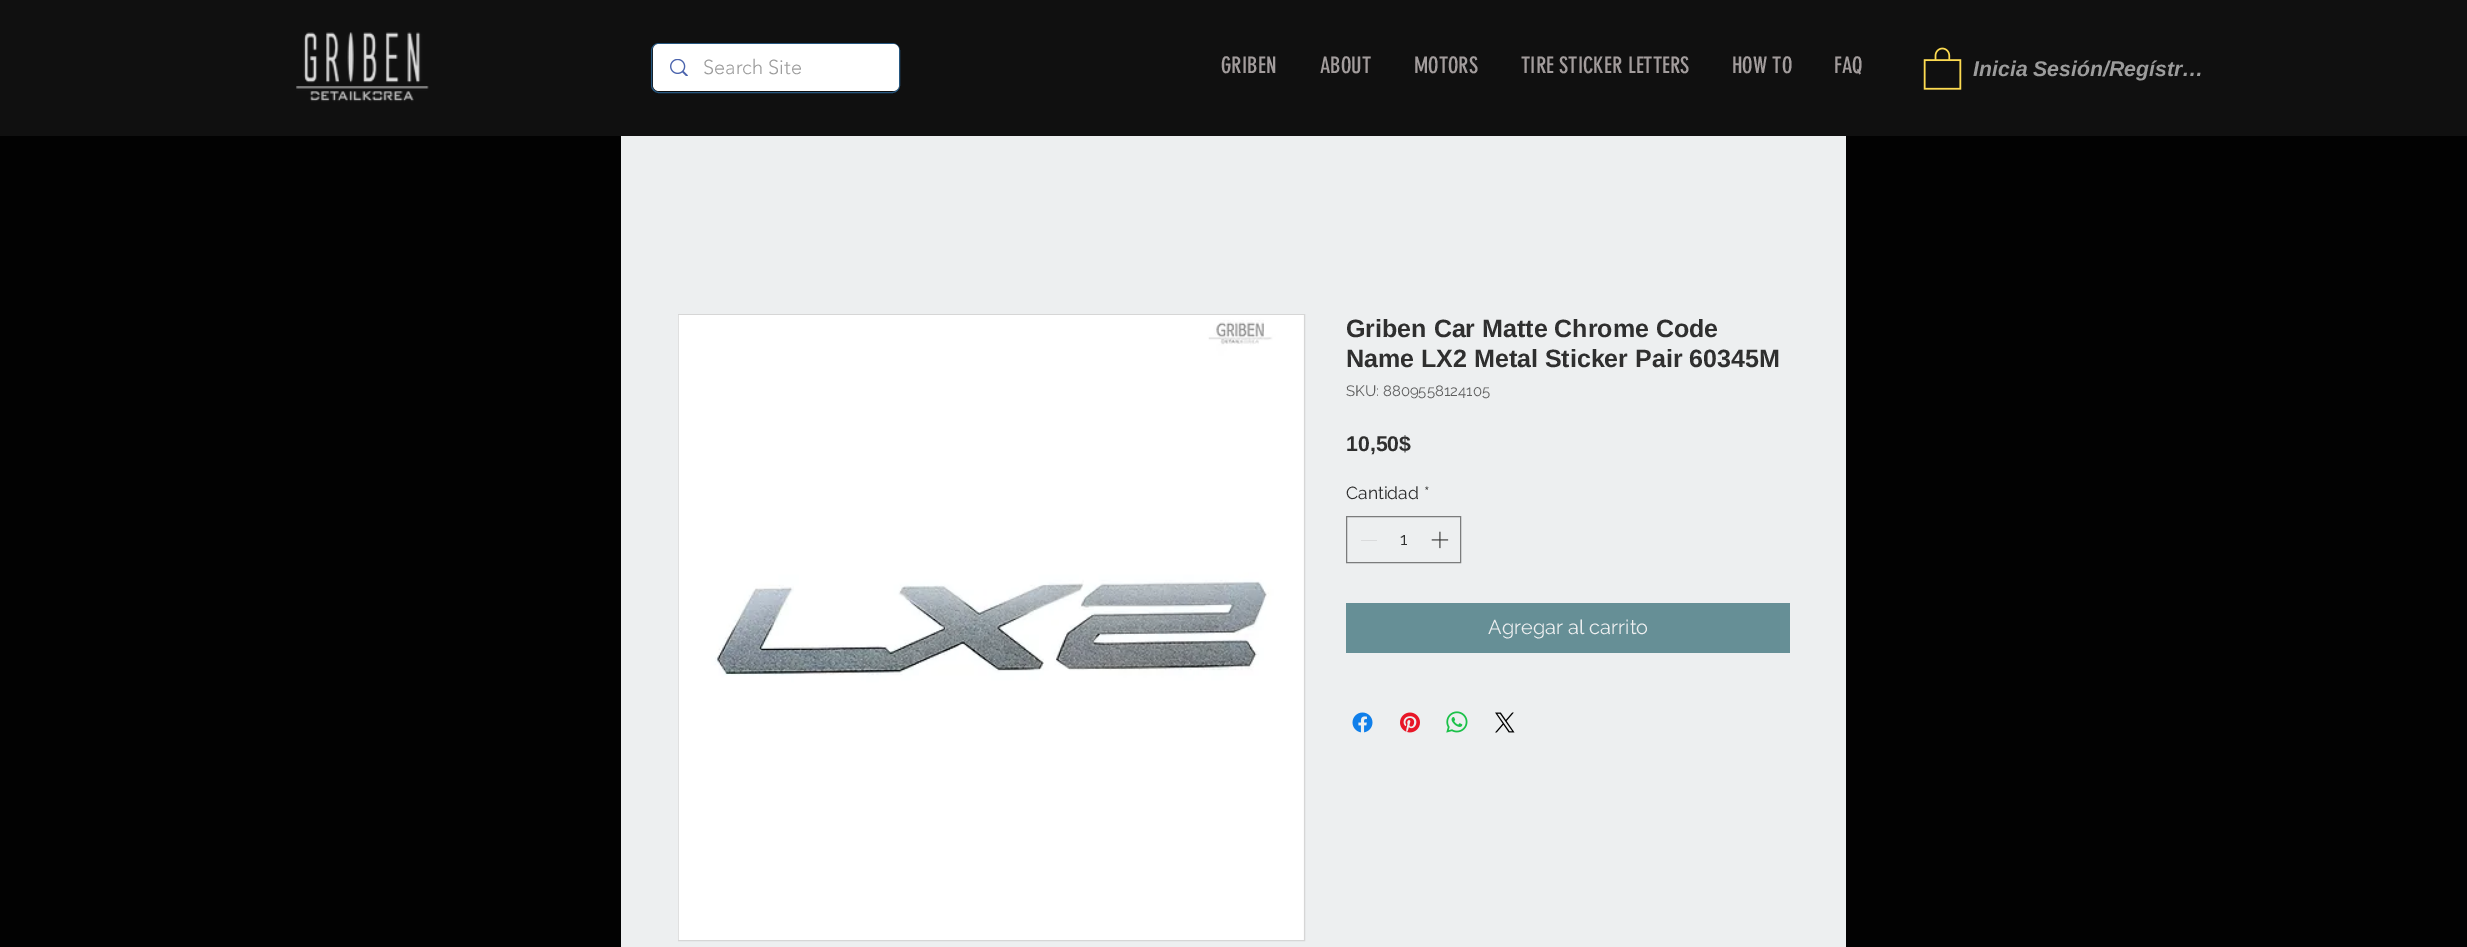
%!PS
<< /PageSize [2467 947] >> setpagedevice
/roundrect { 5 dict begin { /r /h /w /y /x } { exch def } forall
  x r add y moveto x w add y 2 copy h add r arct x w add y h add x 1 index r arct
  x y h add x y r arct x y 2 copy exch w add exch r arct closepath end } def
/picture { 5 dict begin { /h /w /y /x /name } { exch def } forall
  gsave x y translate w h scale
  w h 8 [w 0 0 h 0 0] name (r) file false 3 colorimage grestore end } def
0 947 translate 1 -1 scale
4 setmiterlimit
0.008 setgray
0 0 2467 947 rectfill
0.063 setgray
0 0 2467 136 rectfill
(img1.rgb) 296 32 133 70 picture
0.153 0.345 0.506 setrgbcolor
651.5 43.5 248 49 7.5 roundrect stroke
1 setgray
653 44 246 47 6 roundrect fill
(img2.rgb) 670 59 18 17 picture
/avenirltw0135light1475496-Light [20 0 0 -20 0 0] selectfont
0.612 setgray
703 74 moveto (Search Site) show
/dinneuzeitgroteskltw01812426-Regular [22.5 0 0 -22.5 0 0] selectfont
0.635 0.612 0.612 setrgbcolor
1221 73 moveto (GRIBEN) show
1320 73 moveto (ABOUT) show
1414 73 moveto (MOTORS) show
1521 73 moveto (TIRE STICKER LETTERS) show
1732 73 moveto (HOW TO) show
1834 73 moveto (FAQ) show
(img3.rgb) 1923 47 39 43 picture
/LiberationSans-BoldItalic [21.25 0 0 -21.25 0 0] selectfont
0.612 setgray
1973 76 moveto (Inicia Sesión/Regístr…) show
0.929 0.937 0.941 setrgbcolor
621 136 1225 811 rectfill
0.839 setgray
678.5 314.5 626 626 rectstroke
(img4.rgb) 678 315 626 625 picture
/LiberationSans-Bold [25 0 0 -25 0 0] selectfont
0.184 setgray
1346 337 moveto (Griben Car Matte Chrome Code) show
1346 367 moveto (Name LX2 Metal Sticker Pair 60345M) show
/Raleway-Regular [15 0 0 -15 0 0] selectfont
0.369 setgray
1346 396 moveto (SKU: 8809558124105) show
/LiberationSans-Bold [21.25 0 0 -21.25 0 0] selectfont
0.184 setgray
1346 451 moveto (10,50$) show
/Raleway-Regular [17.5 0 0 -17.5 0 0] selectfont
1346 499 moveto (Cantidad) show
1424 499 moveto (*) show
0.482 0.486 0.486 setrgbcolor
1346.5 516.5 114 46 rectstroke
0.855 0.859 0.863 setrgbcolor
1361 540 16 1 rectfill
0.184 setgray
1400 545 moveto (1) show
(img5.rgb) 1431 531 18 18 picture
0.4 0.561 0.588 setrgbcolor
1346 603 444 50 rectfill
/Raleway-Regular [20 0 0 -20 0 0] selectfont
0.929 0.937 0.941 setrgbcolor
1488 634 moveto (Agregar al carrito) show
(img6.rgb) 1352 712 21 21 picture
(img7.rgb) 1400 712 20 21 picture
(img8.rgb) 1446 711 22 22 picture
(img9.rgb) 1495 712 20 21 picture
showpage
